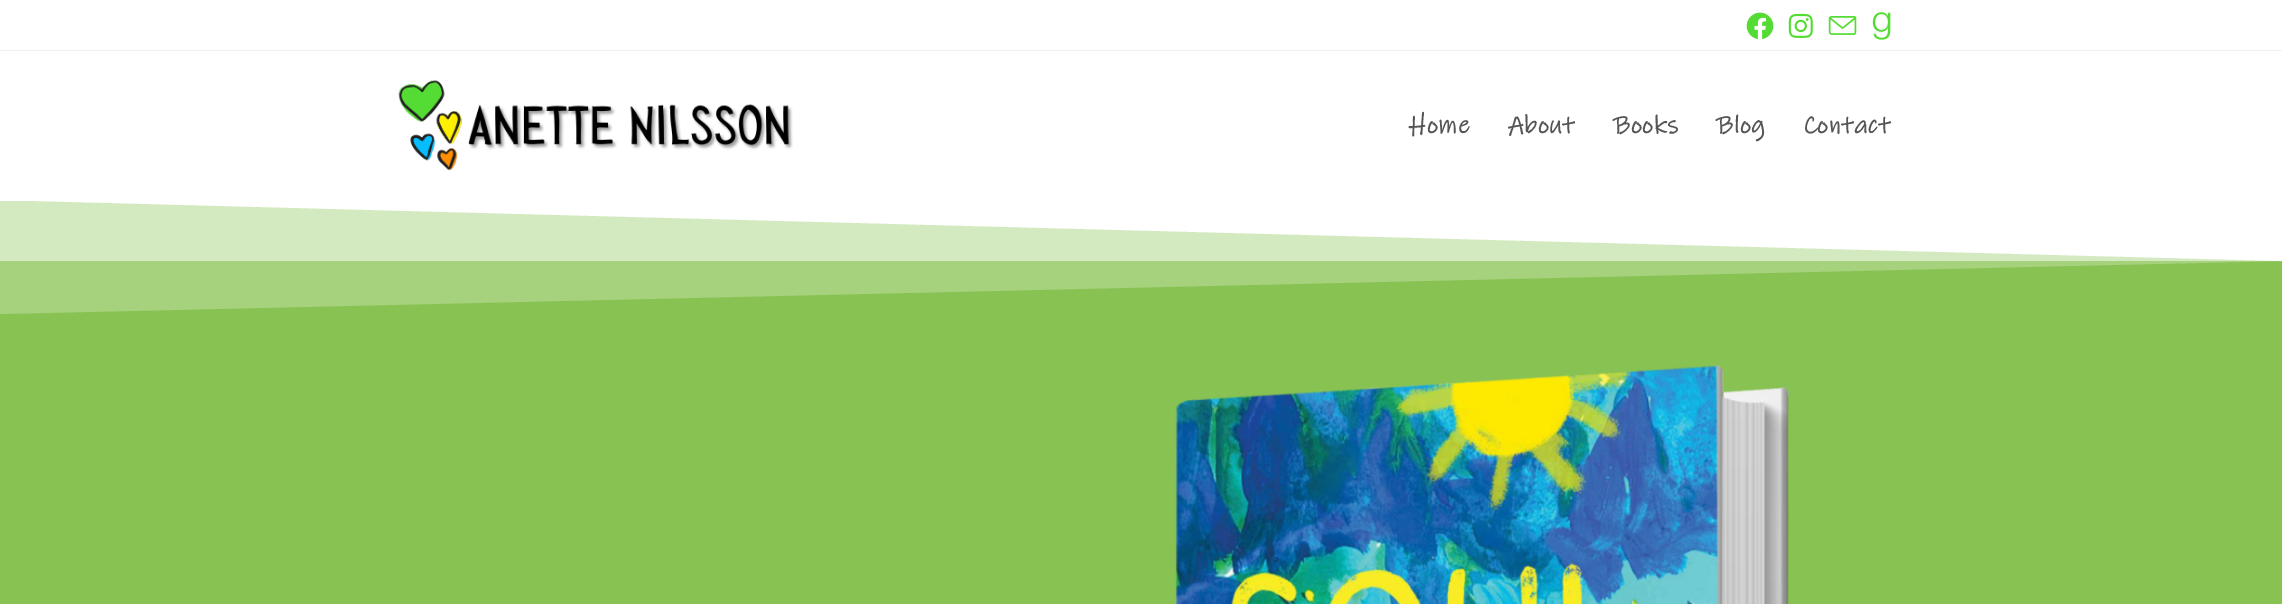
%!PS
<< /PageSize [2282 604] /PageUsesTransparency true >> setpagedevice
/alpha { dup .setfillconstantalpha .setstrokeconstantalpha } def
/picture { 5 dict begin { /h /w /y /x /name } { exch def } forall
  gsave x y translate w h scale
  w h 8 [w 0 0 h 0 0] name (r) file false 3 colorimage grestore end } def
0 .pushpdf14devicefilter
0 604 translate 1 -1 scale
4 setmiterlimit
1 setgray
0 0 2282 604 rectfill
0.945 setgray
0 50 2282 1 rectfill
(img1.rgb) 1746 12 28 27 picture
(img2.rgb) 1788 13 25 25 picture
(img3.rgb) 1828 16 29 19 picture
(img4.rgb) 1872 12 19 28 picture
(img5.rgb) 398 80 395 91 picture
/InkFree-Bold [25 0 0 -25 0 0] selectfont
0.333 setgray
1409 133 moveto 0.75 0 (Home) ashow
1508 133 moveto 0.75 0 (About) ashow
1613 133 moveto 0.75 0 (Books) ashow
1716 133 moveto 0.75 0 (Blog) ashow
1803 133 moveto 0.75 0 (Contact) ashow
0.533 0.761 0.322 setrgbcolor
0 261 2282 343 rectfill
0.769 0.882 0.663 setrgbcolor
0 201 2282 60 rectfill
1 setgray
newpath -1 200 moveto 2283 200 lineto 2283 261 lineto closepath fill
0.25 alpha
newpath 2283 200 moveto -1 200 lineto -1 314 lineto 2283 261 lineto closepath fill
1 alpha
(img6.rgb) 1175 365 614 239 picture
.poppdf14devicefilter showpage
